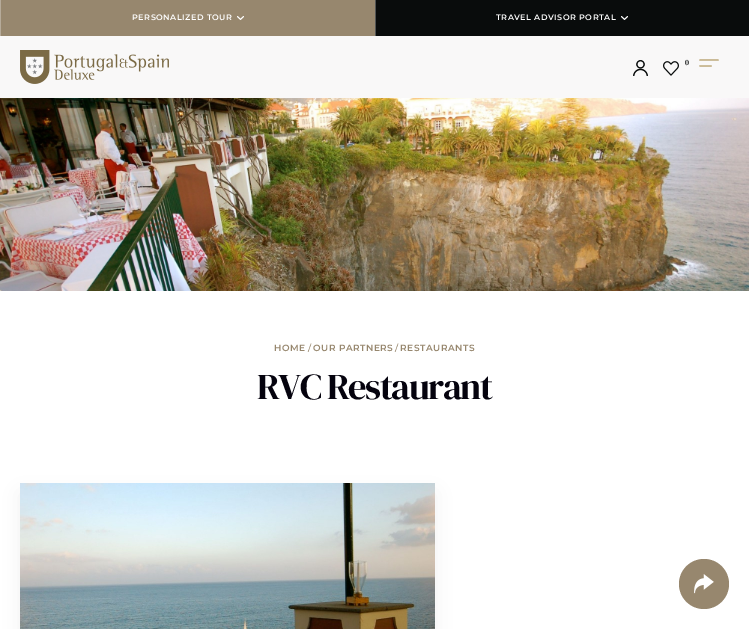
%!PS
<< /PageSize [749 629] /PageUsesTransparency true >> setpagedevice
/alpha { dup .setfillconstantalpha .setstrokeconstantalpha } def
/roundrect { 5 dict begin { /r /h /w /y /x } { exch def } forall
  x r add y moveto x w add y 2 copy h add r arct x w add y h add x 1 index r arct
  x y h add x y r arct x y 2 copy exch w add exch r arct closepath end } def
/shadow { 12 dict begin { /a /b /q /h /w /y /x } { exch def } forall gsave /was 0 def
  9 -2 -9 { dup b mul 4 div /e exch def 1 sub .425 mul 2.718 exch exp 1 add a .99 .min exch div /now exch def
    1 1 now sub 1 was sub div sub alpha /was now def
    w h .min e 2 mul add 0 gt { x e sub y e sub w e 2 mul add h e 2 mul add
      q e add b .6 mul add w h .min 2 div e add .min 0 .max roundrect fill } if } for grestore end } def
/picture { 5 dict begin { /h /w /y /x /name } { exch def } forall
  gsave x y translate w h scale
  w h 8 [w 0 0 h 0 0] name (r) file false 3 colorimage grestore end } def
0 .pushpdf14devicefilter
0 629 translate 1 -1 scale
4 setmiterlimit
1 setgray
0 0 749 629 rectfill
0.035 0.047 0.047 setrgbcolor
376 0 373 36 rectfill
0.592 0.529 0.431 setrgbcolor
1 0 374 36 rectfill
0.714 0.671 0.604 setrgbcolor
0 0 1 36 rectfill
/Montserrat-SemiBold [8 0 0 -8 0 0] selectfont
1 setgray
132 20 moveto 0.5 0 (PERSONALIZED TOUR) ashow
(img1.rgb) 237 16 7 4 picture
0.325 0.333 0.333 setrgbcolor
375 0 1 36 rectfill
1 setgray
496 20 moveto 0.5 0 (TRAVEL ADVISOR PORTAL) ashow
(img2.rgb) 621 16 7 4 picture
0.976 0.973 0.973 setrgbcolor
0 36 749 62 rectfill
(img3.rgb) 20 50 149 34 picture
(img4.rgb) 633 60 15 16 picture
(img5.rgb) 663 61 16 15 picture
/DMSerifDisplay-Regular [8 0 0 -8 0 0] selectfont
0.035 0.047 0.047 setrgbcolor
685 65 moveto 1 0 (0) ashow
(img6.rgb) 699 59 20 8 picture
(img7.rgb) 0 98 749 193 picture
/Montserrat-SemiBold [9 0 0 -9 0 0] selectfont
0.592 0.529 0.431 setrgbcolor
274 351 moveto 0.5 0 (HOME) ashow
/Montserrat-Medium [9 0 0 -9 0 0] selectfont
308 351 moveto (/) show
/Montserrat-SemiBold [9 0 0 -9 0 0] selectfont
313 351 moveto 0.5 0 (OUR PARTNERS) ashow
/Montserrat-Medium [9 0 0 -9 0 0] selectfont
395 351 moveto (/) show
/Montserrat-SemiBold [9 0 0 -9 0 0] selectfont
400 351 moveto 0.5 0 (RESTAURANTS) ashow
/DMSerifDisplay-Regular [36.5 0 0 -36.5 0 0] selectfont
0.02 0.012 0.055 setrgbcolor
257 399 moveto -1.5 0 (RVC Restaurant) ashow
0 setgray
20 493 415 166 0 10 0.05 shadow
(img8.rgb) 20 483 415 146 picture
0.592 0.529 0.431 setrgbcolor
newpath 704 584 25 0 360 arc closepath fill
(img9.rgb) 694 574 20 20 picture
.poppdf14devicefilter showpage
